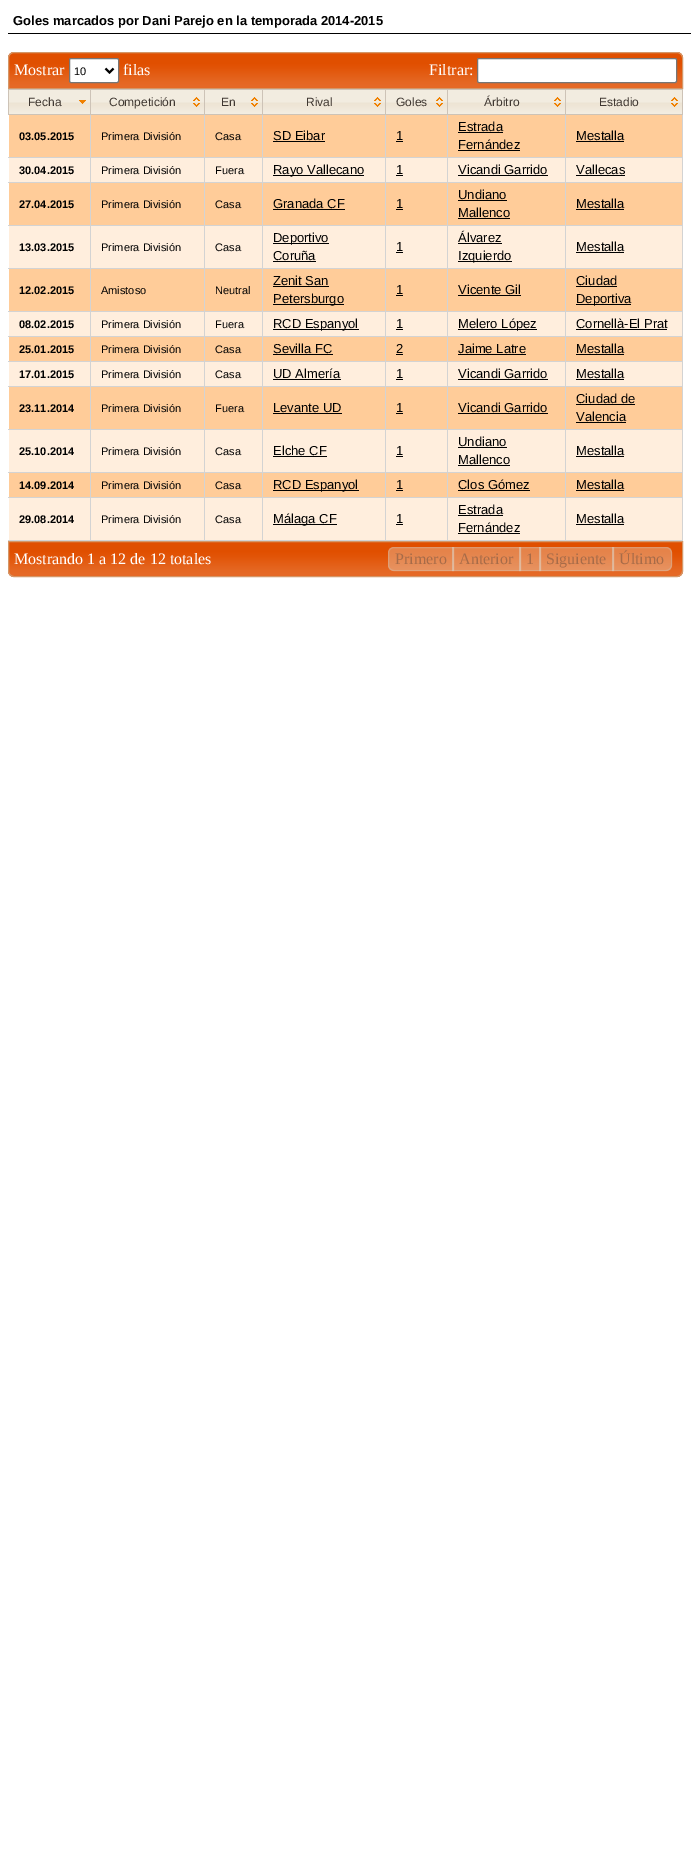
%!PS
<< /PageSize [691 1870] /PageUsesTransparency true >> setpagedevice
/alpha { dup .setfillconstantalpha .setstrokeconstantalpha } def
/roundrect { 5 dict begin { /r /h /w /y /x } { exch def } forall
  x r add y moveto x w add y 2 copy h add r arct x w add y h add x 1 index r arct
  x y h add x y r arct x y 2 copy exch w add exch r arct closepath end } def
/picture { 5 dict begin { /h /w /y /x /name } { exch def } forall
  gsave x y translate w h scale
  w h 8 [w 0 0 h 0 0] name (r) file false 3 colorimage grestore end } def
0 .pushpdf14devicefilter
0 1870 translate 1 -1 scale
4 setmiterlimit
1 setgray
0 0 691 1870 rectfill
/LiberationSans-Bold [13 0 0 -13 0 0] selectfont
0 setgray
13 25 moveto (Goles marcados por Dani Parejo en la temporada 2014-2015) show
8 33 683 1 rectfill
(img1.rgb) 8 52 675 36 picture
0.831 0.592 0.408 setrgbcolor
newpath 14 52.5 moveto 677 52.5 lineto 680 52.5 682.5 55 682.5 58 curveto 682.5 88.5 lineto 8.5 88.5 lineto 8.5 58 lineto 8.5 55 11 52.5 14 52.5 curveto closepath stroke
/LiberationSerif-Regular [16 0 0 -16 0 0] selectfont
1 setgray
14 75 moveto (Mostrar) show
69.5 58.5 49 24 1.5 roundrect gsave fill grestore
0.463 setgray
stroke
0 setgray
2 setlinewidth
newpath 105.5 68.5 moveto 109.5 72.5 lineto 113.5 68.5 lineto stroke
/LiberationSans-Regular [11 0 0 -11 0 0] selectfont
74 75 moveto (10) show
/LiberationSerif-Regular [16 0 0 -16 0 0] selectfont
1 setgray
123 75 moveto (filas) show
429 75 moveto (Filtrar:) show
477.5 58.5 199 24 1.5 roundrect gsave fill grestore
0.463 setgray
1 setlinewidth
stroke
(img2.rgb) 9 90 81 24 picture
0.804 0.765 0.718 setrgbcolor
565 89 118 1 rectfill
0.827 setgray
682 114 1 427 rectfill
0.804 0.765 0.718 setrgbcolor
682 89 1 26 rectfill
1 0.8 0.6 setrgbcolor
9 115 673 42 rectfill
1 0.933 0.867 setrgbcolor
9 158 673 24 rectfill
1 0.8 0.6 setrgbcolor
9 183 673 42 rectfill
1 0.933 0.867 setrgbcolor
9 226 673 42 rectfill
1 0.8 0.6 setrgbcolor
9 269 673 42 rectfill
1 0.933 0.867 setrgbcolor
9 312 673 24 rectfill
1 0.8 0.6 setrgbcolor
9 337 673 24 rectfill
1 0.933 0.867 setrgbcolor
9 362 673 24 rectfill
1 0.8 0.6 setrgbcolor
9 387 673 42 rectfill
1 0.933 0.867 setrgbcolor
9 430 673 42 rectfill
1 0.8 0.6 setrgbcolor
9 473 673 24 rectfill
1 0.933 0.867 setrgbcolor
9 498 673 42 rectfill
0.827 setgray
565 540 118 1 rectfill
565 497 1 44 rectfill
565 497 118 1 rectfill
565 472 1 26 rectfill
565 472 118 1 rectfill
565 429 1 44 rectfill
565 429 118 1 rectfill
565 386 1 44 rectfill
565 386 118 1 rectfill
565 361 1 26 rectfill
565 361 118 1 rectfill
565 336 1 26 rectfill
565 336 118 1 rectfill
565 311 1 26 rectfill
565 311 118 1 rectfill
565 268 1 44 rectfill
565 268 118 1 rectfill
565 225 1 44 rectfill
565 225 118 1 rectfill
565 182 1 44 rectfill
565 182 118 1 rectfill
565 157 1 26 rectfill
565 157 118 1 rectfill
565 114 1 44 rectfill
0.804 0.765 0.718 setrgbcolor
565 114 118 1 rectfill
565 89 1 26 rectfill
447 89 119 1 rectfill
0.827 setgray
447 540 119 1 rectfill
447 497 1 44 rectfill
447 497 119 1 rectfill
447 472 1 26 rectfill
447 472 119 1 rectfill
447 429 1 44 rectfill
447 429 119 1 rectfill
447 386 1 44 rectfill
447 386 119 1 rectfill
447 361 1 26 rectfill
447 361 119 1 rectfill
447 336 1 26 rectfill
447 336 119 1 rectfill
447 311 1 26 rectfill
447 311 119 1 rectfill
447 268 1 44 rectfill
447 268 119 1 rectfill
447 225 1 44 rectfill
447 225 119 1 rectfill
447 182 1 44 rectfill
447 182 119 1 rectfill
447 157 1 26 rectfill
447 157 119 1 rectfill
447 114 1 44 rectfill
0.804 0.765 0.718 setrgbcolor
447 114 119 1 rectfill
447 89 1 26 rectfill
385 89 63 1 rectfill
0.827 setgray
385 540 63 1 rectfill
385 497 1 44 rectfill
385 497 63 1 rectfill
385 472 1 26 rectfill
385 472 63 1 rectfill
385 429 1 44 rectfill
385 429 63 1 rectfill
385 386 1 44 rectfill
385 386 63 1 rectfill
385 361 1 26 rectfill
385 361 63 1 rectfill
385 336 1 26 rectfill
385 336 63 1 rectfill
385 311 1 26 rectfill
385 311 63 1 rectfill
385 268 1 44 rectfill
385 268 63 1 rectfill
385 225 1 44 rectfill
385 225 63 1 rectfill
385 182 1 44 rectfill
385 182 63 1 rectfill
385 157 1 26 rectfill
385 157 63 1 rectfill
385 114 1 44 rectfill
0.804 0.765 0.718 setrgbcolor
385 114 63 1 rectfill
385 89 1 26 rectfill
262 89 124 1 rectfill
0.827 setgray
262 540 124 1 rectfill
262 497 1 44 rectfill
262 497 124 1 rectfill
262 472 1 26 rectfill
262 472 124 1 rectfill
262 429 1 44 rectfill
262 429 124 1 rectfill
262 386 1 44 rectfill
262 386 124 1 rectfill
262 361 1 26 rectfill
262 361 124 1 rectfill
262 336 1 26 rectfill
262 336 124 1 rectfill
262 311 1 26 rectfill
262 311 124 1 rectfill
262 268 1 44 rectfill
262 268 124 1 rectfill
262 225 1 44 rectfill
262 225 124 1 rectfill
262 182 1 44 rectfill
262 182 124 1 rectfill
262 157 1 26 rectfill
262 157 124 1 rectfill
262 114 1 44 rectfill
0.804 0.765 0.718 setrgbcolor
262 114 124 1 rectfill
262 89 1 26 rectfill
204 89 59 1 rectfill
0.827 setgray
204 540 59 1 rectfill
204 497 1 44 rectfill
204 497 59 1 rectfill
204 472 1 26 rectfill
204 472 59 1 rectfill
204 429 1 44 rectfill
204 429 59 1 rectfill
204 386 1 44 rectfill
204 386 59 1 rectfill
204 361 1 26 rectfill
204 361 59 1 rectfill
204 336 1 26 rectfill
204 336 59 1 rectfill
204 311 1 26 rectfill
204 311 59 1 rectfill
204 268 1 44 rectfill
204 268 59 1 rectfill
204 225 1 44 rectfill
204 225 59 1 rectfill
204 182 1 44 rectfill
204 182 59 1 rectfill
204 157 1 26 rectfill
204 157 59 1 rectfill
204 114 1 44 rectfill
0.804 0.765 0.718 setrgbcolor
204 114 59 1 rectfill
204 89 1 26 rectfill
90 89 115 1 rectfill
0.827 setgray
90 540 115 1 rectfill
90 497 1 44 rectfill
90 497 115 1 rectfill
90 472 1 26 rectfill
90 472 115 1 rectfill
90 429 1 44 rectfill
90 429 115 1 rectfill
90 386 1 44 rectfill
90 386 115 1 rectfill
90 361 1 26 rectfill
90 361 115 1 rectfill
90 336 1 26 rectfill
90 336 115 1 rectfill
90 311 1 26 rectfill
90 311 115 1 rectfill
90 268 1 44 rectfill
90 268 115 1 rectfill
90 225 1 44 rectfill
90 225 115 1 rectfill
90 182 1 44 rectfill
90 182 115 1 rectfill
90 157 1 26 rectfill
90 157 115 1 rectfill
90 114 1 44 rectfill
0.804 0.765 0.718 setrgbcolor
90 114 115 1 rectfill
90 89 1 26 rectfill
8 89 83 1 rectfill
8 114 83 1 rectfill
8 89 1 26 rectfill
/LiberationSans-Regular [12 0 0 -12 0 0] selectfont
0.247 0.216 0.192 setrgbcolor
28 106 moveto (Fecha) show
(img3.rgb) 79 100 7 4 picture
(img4.rgb) 91 90 113 24 picture
109 106 moveto (Competición) show
(img5.rgb) 193 97 7 10 picture
(img6.rgb) 205 90 57 24 picture
221 106 moveto (En) show
(img5.rgb) 251 97 7 10 picture
(img7.rgb) 263 90 122 24 picture
306 106 moveto (Rival) show
(img5.rgb) 374 97 7 10 picture
(img8.rgb) 386 90 61 24 picture
396 106 moveto (Goles) show
(img5.rgb) 436 97 7 10 picture
(img9.rgb) 448 90 117 24 picture
484 106 moveto (Árbitro) show
(img5.rgb) 554 97 7 10 picture
(img10.rgb) 566 90 116 24 picture
599 106 moveto (Estadio) show
(img5.rgb) 671 97 7 10 picture
0.827 setgray
8 157 83 1 rectfill
/LiberationSans-Bold [11 0 0 -11 0 0] selectfont
0 setgray
19 140 moveto (03.05.2015) show
/LiberationSans-Regular [11 0 0 -11 0 0] selectfont
101 140 moveto (Primera División) show
215 140 moveto (Casa) show
/LiberationSans-Regular [13 0 0 -13 0 0] selectfont
273 140 moveto (SD Eibar) show
273 141 52 1 rectfill
396 140 moveto (1) show
396 141 7 1 rectfill
458 131 moveto (Estrada) show
458 132 45 1 rectfill
458 149 moveto (Fernández) show
458 150 62 1 rectfill
576 140 moveto (Mestalla) show
576 141 48 1 rectfill
0.827 setgray
8 182 83 1 rectfill
/LiberationSans-Bold [11 0 0 -11 0 0] selectfont
0 setgray
19 174 moveto (30.04.2015) show
/LiberationSans-Regular [11 0 0 -11 0 0] selectfont
101 174 moveto (Primera División) show
215 174 moveto (Fuera) show
273 175 91 1 rectfill
/LiberationSans-Regular [13 0 0 -13 0 0] selectfont
273 174 moveto (Rayo Vallecano) show
396 174 moveto (1) show
396 175 7 1 rectfill
458 174 moveto (Vicandi Garrido) show
458 175 90 1 rectfill
576 174 moveto (Vallecas) show
576 175 49 1 rectfill
0.827 setgray
8 225 83 1 rectfill
/LiberationSans-Bold [11 0 0 -11 0 0] selectfont
0 setgray
19 208 moveto (27.04.2015) show
/LiberationSans-Regular [11 0 0 -11 0 0] selectfont
101 208 moveto (Primera División) show
215 208 moveto (Casa) show
/LiberationSans-Regular [13 0 0 -13 0 0] selectfont
273 208 moveto (Granada CF) show
273 209 72 1 rectfill
396 208 moveto (1) show
396 209 7 1 rectfill
458 199 moveto (Undiano) show
458 200 49 1 rectfill
458 217 moveto (Mallenco) show
458 218 52 1 rectfill
576 208 moveto (Mestalla) show
576 209 48 1 rectfill
0.827 setgray
8 268 83 1 rectfill
/LiberationSans-Bold [11 0 0 -11 0 0] selectfont
0 setgray
19 251 moveto (13.03.2015) show
/LiberationSans-Regular [11 0 0 -11 0 0] selectfont
101 251 moveto (Primera División) show
215 251 moveto (Casa) show
273 243 56 1 rectfill
/LiberationSans-Regular [13 0 0 -13 0 0] selectfont
273 242 moveto (Deportivo) show
273 260 moveto (Coruña) show
273 261 43 1 rectfill
396 251 moveto (1) show
396 252 7 1 rectfill
458 242 moveto (Álvarez) show
458 243 44 1 rectfill
458 261 54 1 rectfill
458 260 moveto (Izquierdo) show
576 251 moveto (Mestalla) show
576 252 48 1 rectfill
0.827 setgray
8 311 83 1 rectfill
/LiberationSans-Bold [11 0 0 -11 0 0] selectfont
0 setgray
19 294 moveto (12.02.2015) show
/LiberationSans-Regular [11 0 0 -11 0 0] selectfont
101 294 moveto (Amistoso) show
215 294 moveto (Neutral) show
/LiberationSans-Regular [13 0 0 -13 0 0] selectfont
273 285 moveto (Zenit San) show
273 286 56 1 rectfill
273 304 71 1 rectfill
273 303 moveto (Petersburgo) show
396 294 moveto (1) show
396 295 7 1 rectfill
458 294 moveto (Vicente Gil) show
458 295 63 1 rectfill
576 285 moveto (Ciudad) show
576 286 41 1 rectfill
576 304 55 1 rectfill
576 303 moveto (Deportiva) show
0.827 setgray
8 336 83 1 rectfill
/LiberationSans-Bold [11 0 0 -11 0 0] selectfont
0 setgray
19 328 moveto (08.02.2015) show
/LiberationSans-Regular [11 0 0 -11 0 0] selectfont
101 328 moveto (Primera División) show
215 328 moveto (Fuera) show
273 329 86 1 rectfill
/LiberationSans-Regular [13 0 0 -13 0 0] selectfont
273 328 moveto (RCD Espanyol) show
396 328 moveto (1) show
396 329 7 1 rectfill
458 329 79 1 rectfill
458 328 moveto (Melero López) show
576 328 moveto (Cornellà-El Prat) show
576 329 91 1 rectfill
0.827 setgray
8 361 83 1 rectfill
/LiberationSans-Bold [11 0 0 -11 0 0] selectfont
0 setgray
19 353 moveto (25.01.2015) show
/LiberationSans-Regular [11 0 0 -11 0 0] selectfont
101 353 moveto (Primera División) show
215 353 moveto (Casa) show
/LiberationSans-Regular [13 0 0 -13 0 0] selectfont
273 353 moveto (Sevilla FC) show
273 354 60 1 rectfill
396 353 moveto (2) show
396 354 7 1 rectfill
458 353 moveto (Jaime Latre) show
458 354 68 1 rectfill
576 353 moveto (Mestalla) show
576 354 48 1 rectfill
0.827 setgray
8 386 83 1 rectfill
/LiberationSans-Bold [11 0 0 -11 0 0] selectfont
0 setgray
19 378 moveto (17.01.2015) show
/LiberationSans-Regular [11 0 0 -11 0 0] selectfont
101 378 moveto (Primera División) show
215 378 moveto (Casa) show
/LiberationSans-Regular [13 0 0 -13 0 0] selectfont
273 378 moveto (UD Almería) show
273 379 68 1 rectfill
396 378 moveto (1) show
396 379 7 1 rectfill
458 378 moveto (Vicandi Garrido) show
458 379 90 1 rectfill
576 378 moveto (Mestalla) show
576 379 48 1 rectfill
0.827 setgray
8 429 83 1 rectfill
/LiberationSans-Bold [11 0 0 -11 0 0] selectfont
0 setgray
19 412 moveto (23.11.2014) show
/LiberationSans-Regular [11 0 0 -11 0 0] selectfont
101 412 moveto (Primera División) show
215 412 moveto (Fuera) show
/LiberationSans-Regular [13 0 0 -13 0 0] selectfont
273 412 moveto (Levante UD) show
273 413 69 1 rectfill
396 412 moveto (1) show
396 413 7 1 rectfill
458 412 moveto (Vicandi Garrido) show
458 413 90 1 rectfill
576 403 moveto (Ciudad de) show
576 404 59 1 rectfill
576 421 moveto (Valencia) show
576 422 50 1 rectfill
0.827 setgray
8 472 83 1 rectfill
/LiberationSans-Bold [11 0 0 -11 0 0] selectfont
0 setgray
19 455 moveto (25.10.2014) show
/LiberationSans-Regular [11 0 0 -11 0 0] selectfont
101 455 moveto (Primera División) show
215 455 moveto (Casa) show
/LiberationSans-Regular [13 0 0 -13 0 0] selectfont
273 455 moveto (Elche CF) show
273 456 54 1 rectfill
396 455 moveto (1) show
396 456 7 1 rectfill
458 446 moveto (Undiano) show
458 447 49 1 rectfill
458 464 moveto (Mallenco) show
458 465 52 1 rectfill
576 455 moveto (Mestalla) show
576 456 48 1 rectfill
0.827 setgray
8 497 83 1 rectfill
/LiberationSans-Bold [11 0 0 -11 0 0] selectfont
0 setgray
19 489 moveto (14.09.2014) show
/LiberationSans-Regular [11 0 0 -11 0 0] selectfont
101 489 moveto (Primera División) show
215 489 moveto (Casa) show
273 490 86 1 rectfill
/LiberationSans-Regular [13 0 0 -13 0 0] selectfont
273 489 moveto (RCD Espanyol) show
396 489 moveto (1) show
396 490 7 1 rectfill
458 489 moveto (Clos Gómez) show
458 490 72 1 rectfill
576 489 moveto (Mestalla) show
576 490 48 1 rectfill
0.827 setgray
8 540 83 1 rectfill
/LiberationSans-Bold [11 0 0 -11 0 0] selectfont
0 setgray
19 523 moveto (29.08.2014) show
/LiberationSans-Regular [11 0 0 -11 0 0] selectfont
101 523 moveto (Primera División) show
215 523 moveto (Casa) show
273 524 64 1 rectfill
/LiberationSans-Regular [13 0 0 -13 0 0] selectfont
273 523 moveto (Málaga CF) show
396 523 moveto (1) show
396 524 7 1 rectfill
458 514 moveto (Estrada) show
458 515 45 1 rectfill
458 532 moveto (Fernández) show
458 533 62 1 rectfill
576 523 moveto (Mestalla) show
576 524 48 1 rectfill
(img11.rgb) 8 542 675 35 picture
0.831 0.592 0.408 setrgbcolor
newpath 8.5 541.5 moveto 682.5 541.5 lineto 682.5 571 lineto 682.5 574 680 576.5 677 576.5 curveto 14 576.5 lineto 11 576.5 8.5 574 8.5 571 curveto closepath stroke
/LiberationSerif-Regular [16 0 0 -16 0 0] selectfont
1 setgray
14 564 moveto (Mostrando 1 a 12 de 12 totales) show
0.35 alpha
0.929 0.894 0.831 setrgbcolor
newpath 394 547 moveto 454 547 lineto 454 571 lineto 394 571 lineto 390.5 571 388 568.5 388 565 curveto 388 553 lineto 388 549.5 390.5 547 394 547 curveto closepath fill
0.804 0.765 0.718 setrgbcolor
newpath 394 547.5 moveto 453.5 547.5 lineto 453.5 570.5 lineto 394 570.5 lineto 391 570.5 388.5 568 388.5 565 curveto 388.5 553 lineto 388.5 550 391 547.5 394 547.5 curveto closepath stroke
1 alpha
0.655 0.42 0.282 setrgbcolor
395 564 moveto (Primero) show
0.35 alpha
0.929 0.894 0.831 setrgbcolor
452 547 69 24 rectfill
0.804 0.765 0.718 setrgbcolor
452.5 547.5 68 23 rectstroke
1 alpha
0.655 0.42 0.282 setrgbcolor
459 564 moveto (Anterior) show
0.35 alpha
0.929 0.894 0.831 setrgbcolor
519 547 22 24 rectfill
0.804 0.765 0.718 setrgbcolor
519.5 547.5 21 23 rectstroke
1 alpha
0.655 0.42 0.282 setrgbcolor
526 564 moveto (1) show
0.35 alpha
0.929 0.894 0.831 setrgbcolor
539 547 75 24 rectfill
0.804 0.765 0.718 setrgbcolor
539.5 547.5 74 23 rectstroke
1 alpha
0.655 0.42 0.282 setrgbcolor
546 564 moveto (Siguiente) show
0.35 alpha
0.929 0.894 0.831 setrgbcolor
newpath 612 547 moveto 666 547 lineto 669.5 547 672 549.5 672 553 curveto 672 565 lineto 672 568.5 669.5 571 666 571 curveto 612 571 lineto closepath fill
0.804 0.765 0.718 setrgbcolor
newpath 612.5 547.5 moveto 666 547.5 lineto 669 547.5 671.5 550 671.5 553 curveto 671.5 565 lineto 671.5 568 669 570.5 666 570.5 curveto 612.5 570.5 lineto closepath stroke
1 alpha
0.655 0.42 0.282 setrgbcolor
619 564 moveto (Último) show
.poppdf14devicefilter showpage
